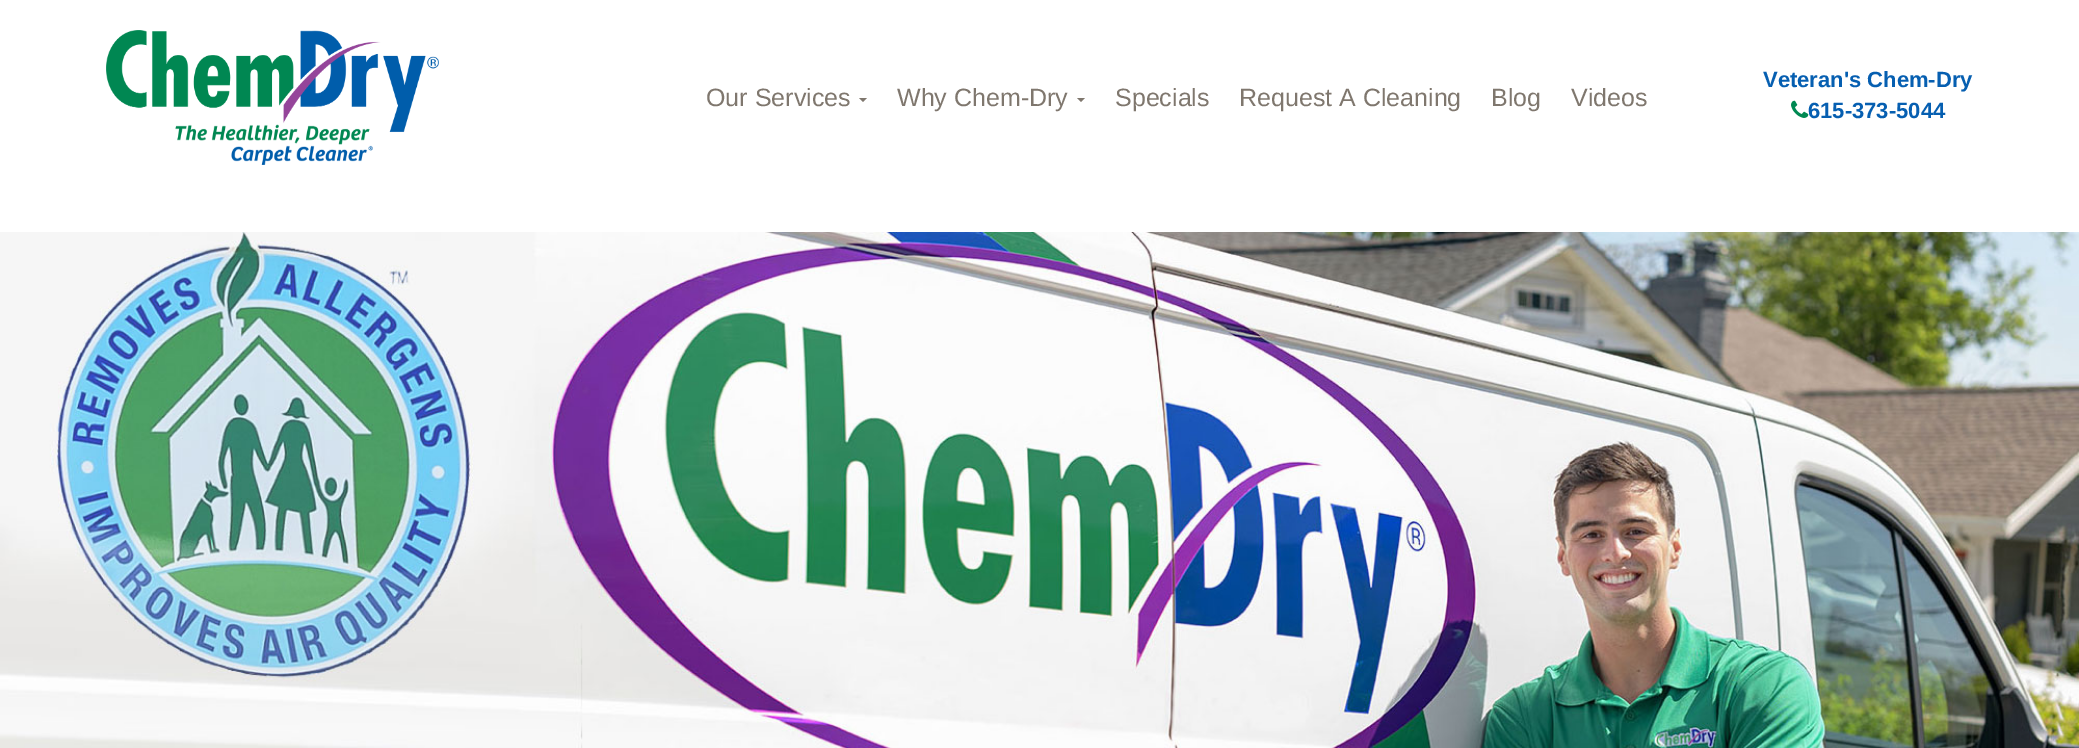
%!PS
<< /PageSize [2079 748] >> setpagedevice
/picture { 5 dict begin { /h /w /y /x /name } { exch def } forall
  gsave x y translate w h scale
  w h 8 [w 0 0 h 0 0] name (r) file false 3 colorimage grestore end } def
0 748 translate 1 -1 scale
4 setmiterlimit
1 setgray
0 0 2079 748 rectfill
(img1.rgb) 106 30 333 135 picture
/LiberationSans-Regular [25 0 0 -25 0 0] selectfont
0.498 0.467 0.431 setrgbcolor
706 106 moveto (Our Services) show
newpath 859 98 moveto 867 98 lineto 863 102 lineto closepath fill
897 106 moveto (Why Chem-Dry) show
newpath 1077 98 moveto 1085 98 lineto 1081 102 lineto closepath fill
1115 106 moveto (Specials) show
1239 106 moveto (Request A Cleaning) show
1491 106 moveto (Blog) show
1571 106 moveto (Videos) show
/LiberationSans-Bold [22 0 0 -22 0 0] selectfont
0.024 0.373 0.694 setrgbcolor
1763 87 moveto (Veteran's Chem-Dry) show
(img2.rgb) 1791 100 18 18 picture
1808 118 moveto (615-373-5044) show
(img3.rgb) 0 232 2079 516 picture
showpage
